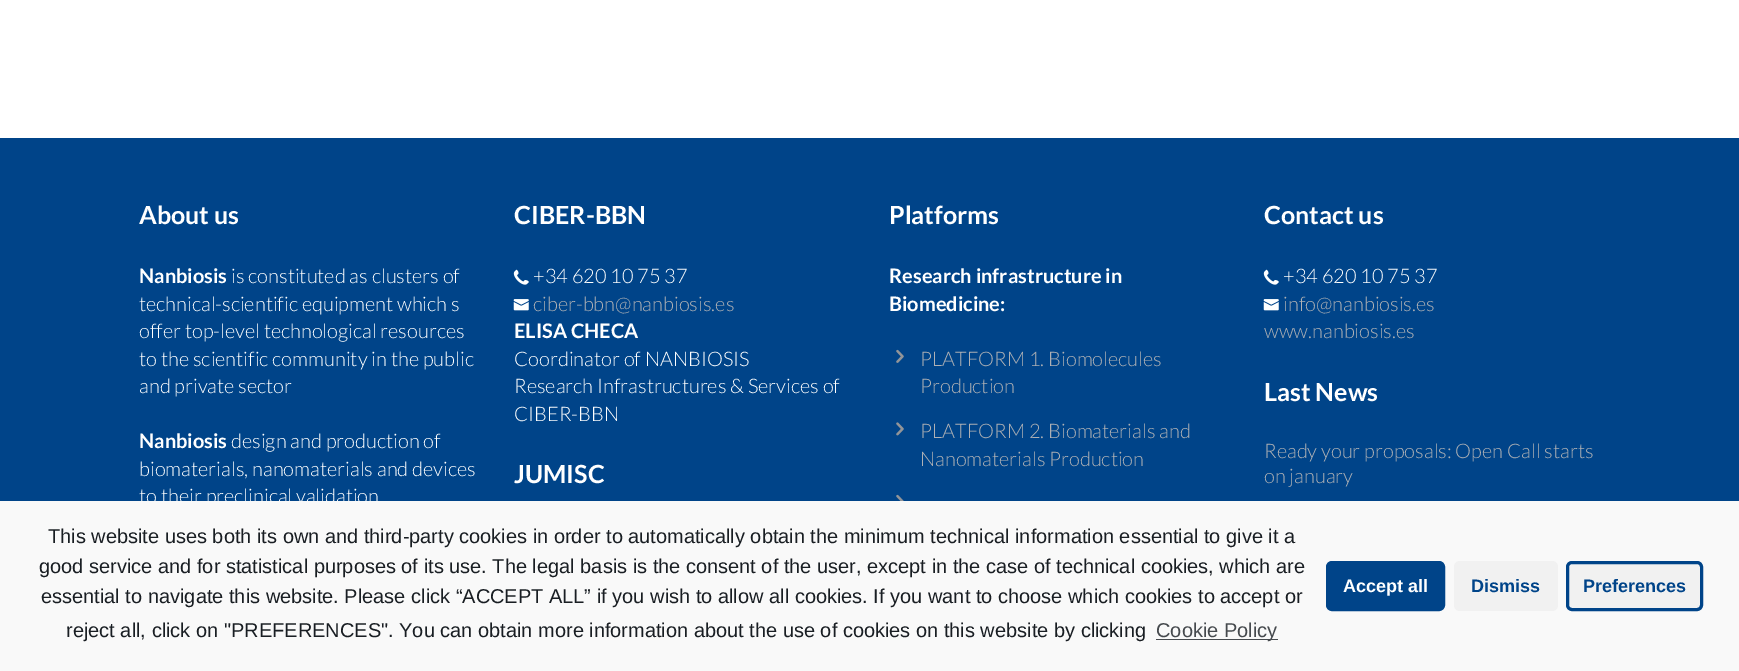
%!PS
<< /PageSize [1739 671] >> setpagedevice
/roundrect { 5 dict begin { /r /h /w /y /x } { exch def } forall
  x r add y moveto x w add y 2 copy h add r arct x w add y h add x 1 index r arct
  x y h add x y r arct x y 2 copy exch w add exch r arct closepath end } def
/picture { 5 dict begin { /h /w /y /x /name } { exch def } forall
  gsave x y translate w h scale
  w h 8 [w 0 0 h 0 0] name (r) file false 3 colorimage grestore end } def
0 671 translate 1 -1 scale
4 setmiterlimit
1 setgray
0 0 1739 671 rectfill
0 0.267 0.537 setrgbcolor
0 138 1739 363 rectfill
/Lato-Bold [25 0 0 -25 0 0] selectfont
1 setgray
139 224 moveto (About us) show
/Lato-Bold [20 0 0 -20 0 0] selectfont
139 283 moveto (Nanbiosis) show
/Lato-Light [20 0 0 -20 0 0] selectfont
231 283 moveto (is constituted as clusters of) show
139 311 moveto (technical-scientific equipment which s) show
139 338 moveto (offer top-level technological resources) show
139 366 moveto (to the scientific community in the public) show
139 393 moveto (and private sector) show
/Lato-Bold [20 0 0 -20 0 0] selectfont
139 448 moveto (Nanbiosis) show
/Lato-Light [20 0 0 -20 0 0] selectfont
231 448 moveto (design and production of) show
139 476 moveto (biomaterials, nanomaterials and devices) show
139 503 moveto (to their preclinical validation) show
/Lato-Bold [25 0 0 -25 0 0] selectfont
514 224 moveto (CIBER-BBN) show
(img1.rgb) 513 269 16 16 picture
/Lato-Light [20 0 0 -20 0 0] selectfont
533 283 moveto (+34 620 10 75 37) show
(img2.rgb) 513 299 16 12 picture
0.686 0.694 0.71 setrgbcolor
533 311 moveto (ciber-bbn@nanbiosis.es) show
/Lato-Bold [20 0 0 -20 0 0] selectfont
1 setgray
514 338 moveto (ELISA CHECA) show
/Lato-Light [20 0 0 -20 0 0] selectfont
514 366 moveto (Coordinator of NANBIOSIS) show
514 393 moveto (Research Infrastructures & Services of) show
514 421 moveto (CIBER-BBN) show
/Lato-Bold [25 0 0 -25 0 0] selectfont
514 483 moveto (JUMISC) show
889 224 moveto (Platforms) show
/Lato-Bold [20 0 0 -20 0 0] selectfont
889 283 moveto (Research infrastructure in) show
889 311 moveto (Biomedicine:) show
(img3.rgb) 896 349 8 14 picture
/Lato-Light [20 0 0 -20 0 0] selectfont
0.686 0.694 0.71 setrgbcolor
920 366 moveto (PLATFORM 1. Biomolecules) show
920 393 moveto (Production) show
(img4.rgb) 896 422 8 14 picture
920 438 moveto (PLATFORM 2. Biomaterials and) show
920 466 moveto (Nanomaterials Production) show
(img5.rgb) 896 494 8 7 picture
/Lato-Bold [25 0 0 -25 0 0] selectfont
1 setgray
1264 224 moveto (Contact us) show
(img1.rgb) 1263 269 16 16 picture
/Lato-Light [20 0 0 -20 0 0] selectfont
1283 283 moveto (+34 620 10 75 37) show
(img2.rgb) 1263 299 16 12 picture
0.686 0.694 0.71 setrgbcolor
1283 311 moveto (info@nanbiosis.es) show
1264 338 moveto (www.nanbiosis.es) show
/Lato-Bold [25 0 0 -25 0 0] selectfont
1 setgray
1264 401 moveto (Last News) show
/Lato-Light [20 0 0 -20 0 0] selectfont
0.686 0.694 0.71 setrgbcolor
1264 458 moveto (Ready your proposals: Open Call starts) show
1264 483 moveto (on january) show
0.976 setgray
0 501 1739 170 rectfill
/LiberationSans-Regular [20 0 0 -20 0 0] selectfont
0.098 0.118 0.137 setrgbcolor
48 543 moveto (This website uses both its own and third-party cookies in order to automatically obtain the minimum technical information essential to give it a) show
39 573 moveto (good service and for statistical purposes of its use. The legal basis is the consent of the user, except in the case of technical cookies, which are) show
41 603 moveto (essential to navigate this website. Please click “ACCEPT ALL” if you wish to allow all cookies. If you want to choose which cookies to accept or) show
66 637 moveto (reject all, click on "PREFERENCES". You can obtain more information about the use of cookies on this website by clicking) show
0.275 0.29 0.306 setrgbcolor
1156 639 122 1 rectfill
1156 637 moveto (Cookie Policy) show
0 0.267 0.537 setrgbcolor
1327.5 562.5 116 47 4.5 roundrect gsave fill grestore
3 setlinewidth
stroke
/LiberationSans-Bold [18 0 0 -18 0 0] selectfont
1 setgray
1343 592 moveto (Accept all) show
0.945 setgray
1454 561 104 50 6 roundrect fill
0 0.267 0.537 setrgbcolor
1471 592 moveto (Dismiss) show
0.945 setgray
1567.5 562.5 134 47 4.5 roundrect gsave fill grestore
0 0.267 0.537 setrgbcolor
stroke
1583 592 moveto (Preferences) show
showpage
